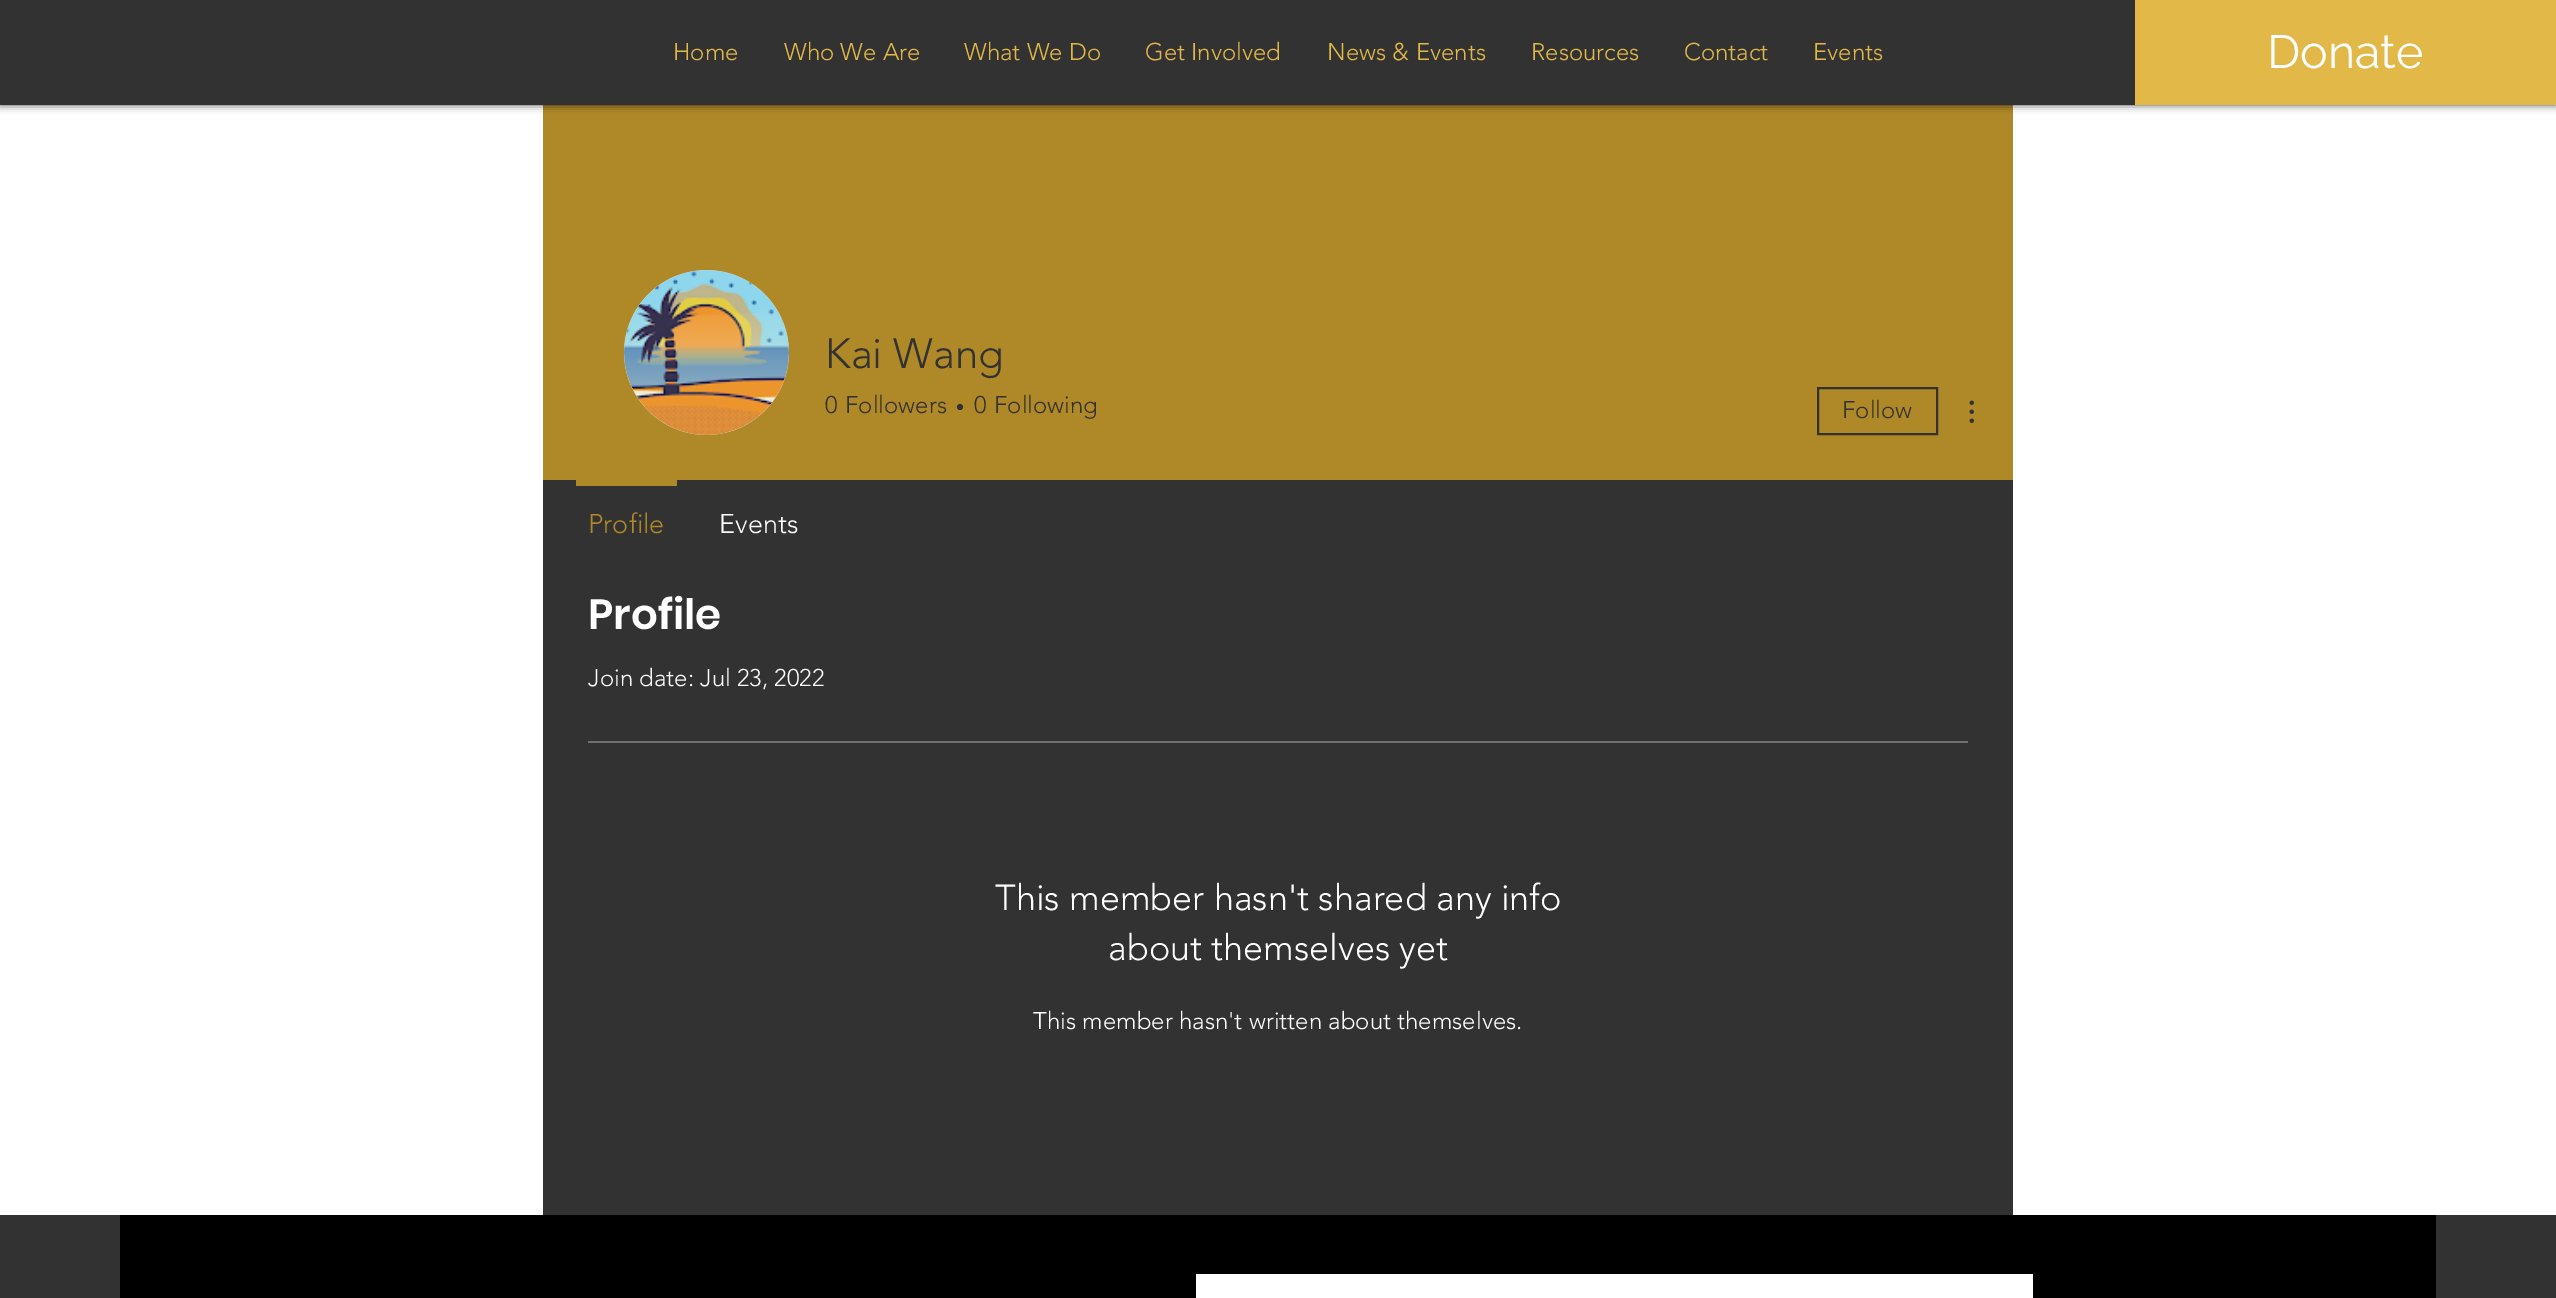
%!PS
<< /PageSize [2556 1298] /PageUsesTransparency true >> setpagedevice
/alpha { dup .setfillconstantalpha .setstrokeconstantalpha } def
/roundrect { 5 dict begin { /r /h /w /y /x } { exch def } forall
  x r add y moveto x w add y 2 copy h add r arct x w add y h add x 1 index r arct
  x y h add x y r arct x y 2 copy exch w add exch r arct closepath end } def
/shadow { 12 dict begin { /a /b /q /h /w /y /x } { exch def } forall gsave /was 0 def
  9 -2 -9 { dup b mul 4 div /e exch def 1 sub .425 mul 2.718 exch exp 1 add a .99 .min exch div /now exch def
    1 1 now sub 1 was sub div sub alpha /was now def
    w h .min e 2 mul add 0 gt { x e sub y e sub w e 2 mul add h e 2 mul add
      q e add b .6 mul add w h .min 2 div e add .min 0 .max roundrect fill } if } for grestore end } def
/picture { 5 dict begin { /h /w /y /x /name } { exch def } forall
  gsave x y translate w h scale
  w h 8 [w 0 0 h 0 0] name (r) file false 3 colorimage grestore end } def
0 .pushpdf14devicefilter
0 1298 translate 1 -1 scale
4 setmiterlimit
1 setgray
0 0 2556 1298 rectfill
0.686 0.533 0.157 setrgbcolor
543 105 1470 375 rectfill
0 setgray
0 0 2556 105 0 4 0.7 shadow
0.196 setgray
0 0 2135 105 rectfill
/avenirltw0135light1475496-Light [24 0 0 -24 0 0] selectfont
0.886 0.722 0.282 setrgbcolor
673 60 moveto (Home) show
784 60 moveto (Who We Are) show
964 60 moveto (What We Do) show
1145 60 moveto (Get Involved) show
1327 60 moveto (News & Events) show
1531 60 moveto (Resources) show
1684 60 moveto (Contact) show
1813 60 moveto (Events) show
2135 0 421 105 rectfill
/Raleway-Regular [46.5 0 0 -46.5 0 0] selectfont
1 setgray
2267 68 moveto (Donate) show
0.847 setgray
newpath 706.5 352.5 82.5 0 360 arc closepath fill
(img1.rgb) 624 270 165 165 picture
/avenirltw0135light1475496-Light [42 0 0 -42 0 0] selectfont
0.196 setgray
825 368 moveto (Kai Wang) show
/avenirltw0135light1475496-Light [24 0 0 -24 0 0] selectfont
825 413 moveto (0) show
845 413 moveto (Followers) show
newpath 960 407 3 0 360 arc closepath fill
974 413 moveto (0) show
994 413 moveto (Following) show
2 setlinewidth
1818 388 119 46 rectstroke
1842 418 moveto (Follow) show
(img2.rgb) 1969 400 5 23 picture
543 480 1470 735 rectfill
0.686 0.533 0.157 setrgbcolor
576 480 101 6 rectfill
/avenirltw0135light1475496-Light [27 0 0 -27 0 0] selectfont
588 533 moveto (Profile) show
1 setgray
719 533 moveto (Events) show
/Poppins-SemiBold [42 0 0 -42 0 0] selectfont
588 629 moveto (Profile) show
/avenirltw0135light1475496-Light [24 0 0 -24 0 0] selectfont
588 686 moveto (Join date: Jul 23, 2022) show
0.439 setgray
588 741 1380 2 rectfill
/avenirltw0135light1475496-Light [36 0 0 -36 0 0] selectfont
1 setgray
995 910 moveto (This member hasn't shared any info) show
1108 960 moveto (about themselves yet) show
/avenirltw0135light1475496-Light [24 0 0 -24 0 0] selectfont
1033 1029 moveto (This member hasn't written about themselves.) show
0.196 setgray
0 1215 2556 83 rectfill
0 setgray
120 1215 2316 83 rectfill
1 setgray
1196 1274 837 24 rectfill
.poppdf14devicefilter showpage
